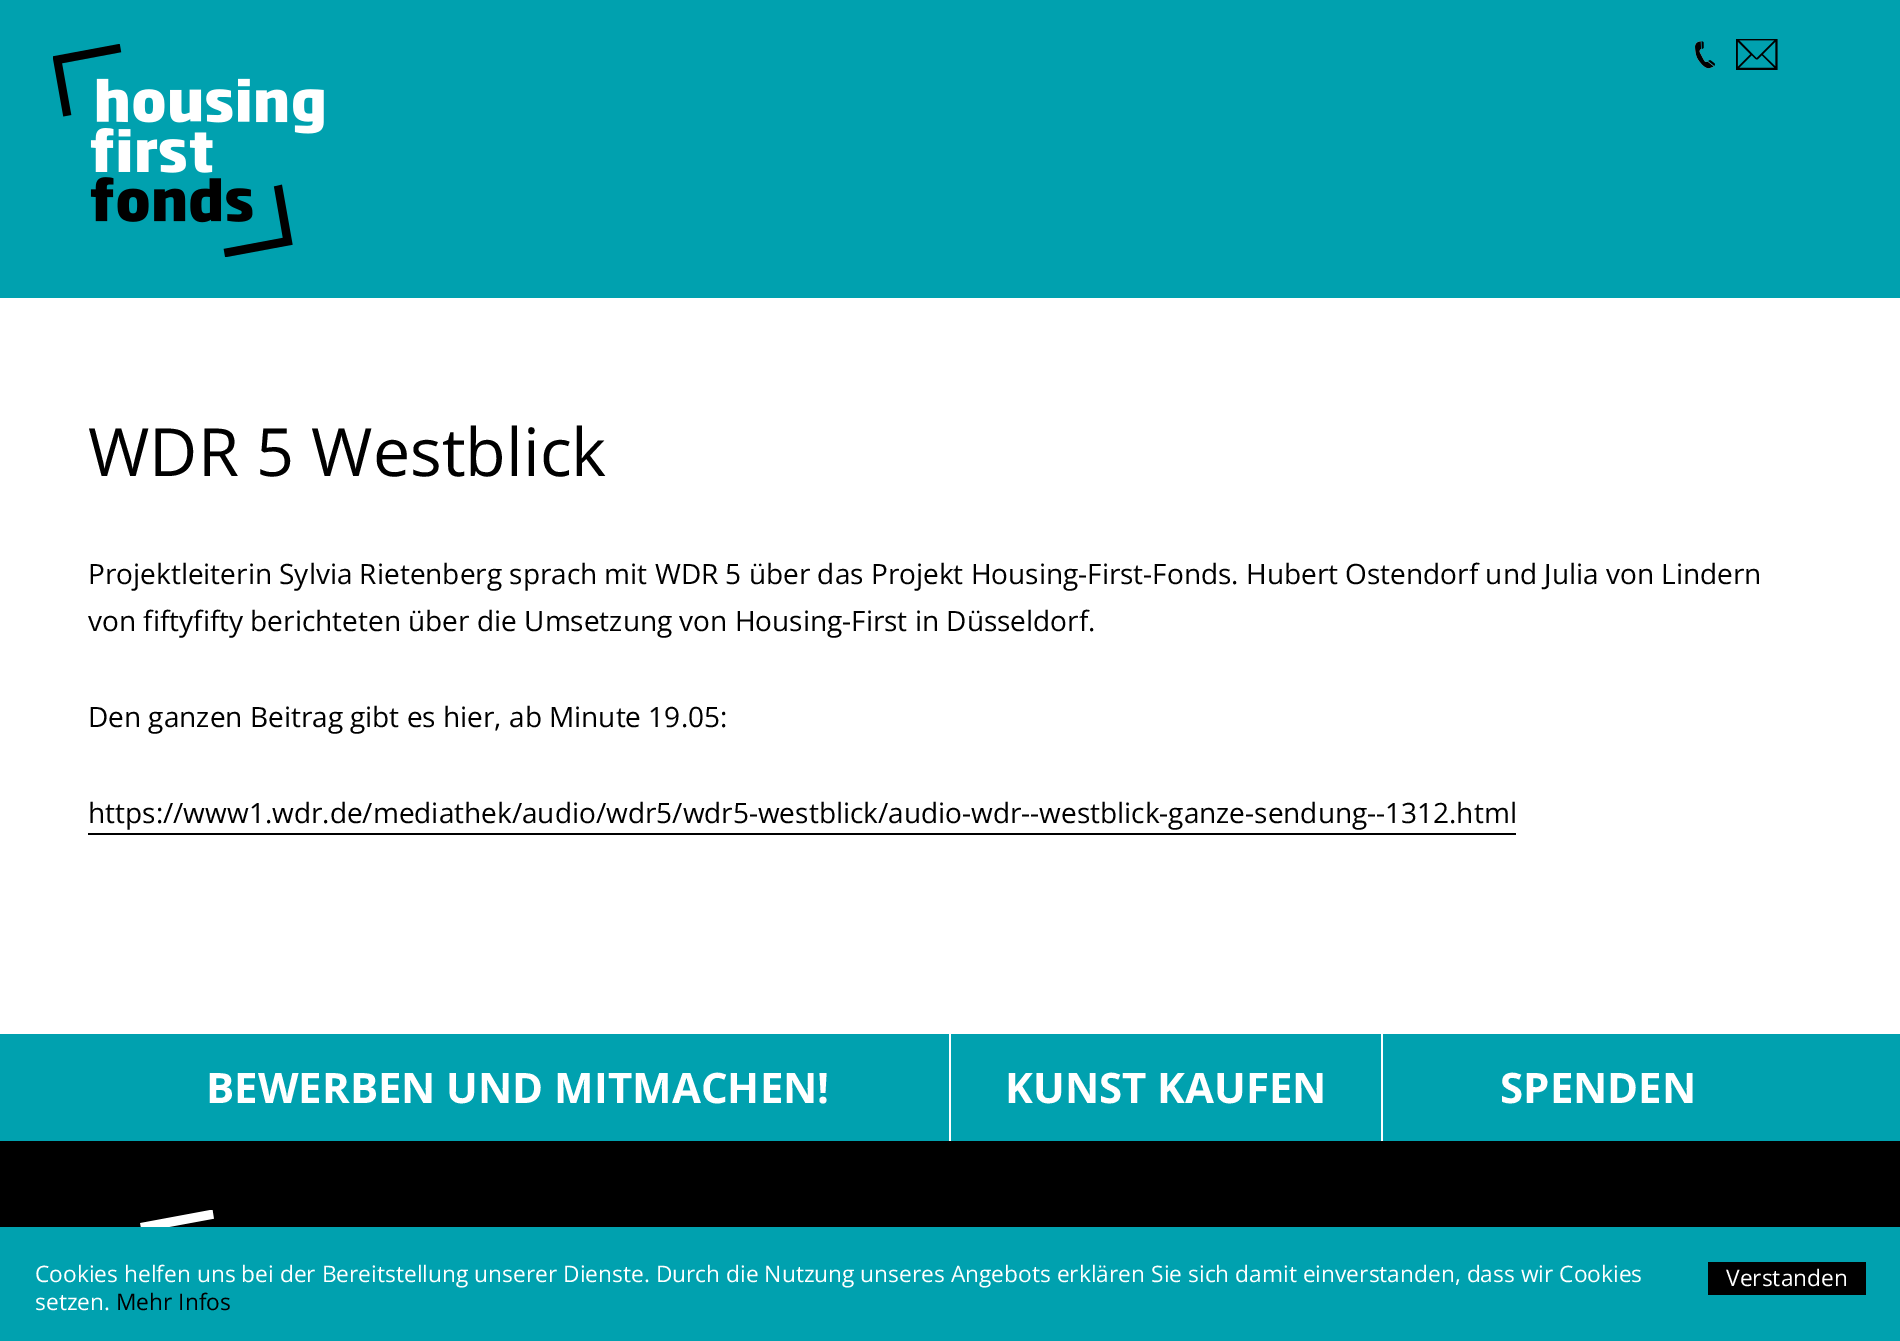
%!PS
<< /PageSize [1900 1341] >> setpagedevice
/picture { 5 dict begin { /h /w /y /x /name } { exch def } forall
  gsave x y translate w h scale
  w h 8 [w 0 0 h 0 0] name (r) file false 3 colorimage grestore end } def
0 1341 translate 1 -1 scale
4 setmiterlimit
1 setgray
0 0 1900 1341 rectfill
0 0.631 0.686 setrgbcolor
0 0 1900 298 rectfill
(img1.rgb) 53 44 271 213 picture
(img2.rgb) 1695 41 20 28 picture
(img3.rgb) 1736 39 42 31 picture
/OpenSans-Regular [66.5 0 0 -66.5 0 0] selectfont
0 setgray
88 476 moveto (WDR 5 Westblick) show
/OpenSans-Regular [28 0 0 -28 0 0] selectfont
88 584 moveto (Projektleiterin Sylvia Rietenberg sprach mit WDR 5 über das Projekt Housing-First-Fonds. Hubert Ostendorf und Julia von Lindern) show
88 631 moveto (von fiftyfifty berichteten über die Umsetzung von Housing-First in Düsseldorf.) show
88 727 moveto (Den ganzen Beitrag gibt es hier, ab Minute 19.05:) show
88 823 moveto (https://www1.wdr.de/mediathek/audio/wdr5/wdr5-westblick/audio-wdr--westblick-ganze-sendung--1312.html) show
88 833 1428 2 rectfill
0 0.631 0.686 setrgbcolor
0 1034 1900 107 rectfill
/OpenSans-Bold [42 0 0 -42 0 0] selectfont
1 setgray
206 1103 moveto (BEWERBEN UND MITMACHEN!) show
949 1034 2 107 rectfill
1005 1103 moveto (KUNST KAUFEN) show
1381 1034 2 107 rectfill
1500 1103 moveto (SPENDEN) show
0 setgray
0 1141 1900 86 rectfill
(img4.rgb) 140 1210 74 17 picture
0 0.631 0.686 setrgbcolor
0 1227 1900 114 rectfill
/OpenSans-Regular [22.75 0 0 -22.75 0 0] selectfont
1 setgray
35 1282 moveto (Cookies helfen uns bei der Bereitstellung unserer Dienste. Durch die Nutzung unseres Angebots erklären Sie sich damit einverstanden, dass wir Cookies) show
35 1310 moveto (setzen.) show
0 setgray
116 1310 moveto (Mehr Infos) show
1708 1262 158 33 rectfill
1 setgray
1726 1286 moveto (Verstanden) show
showpage
